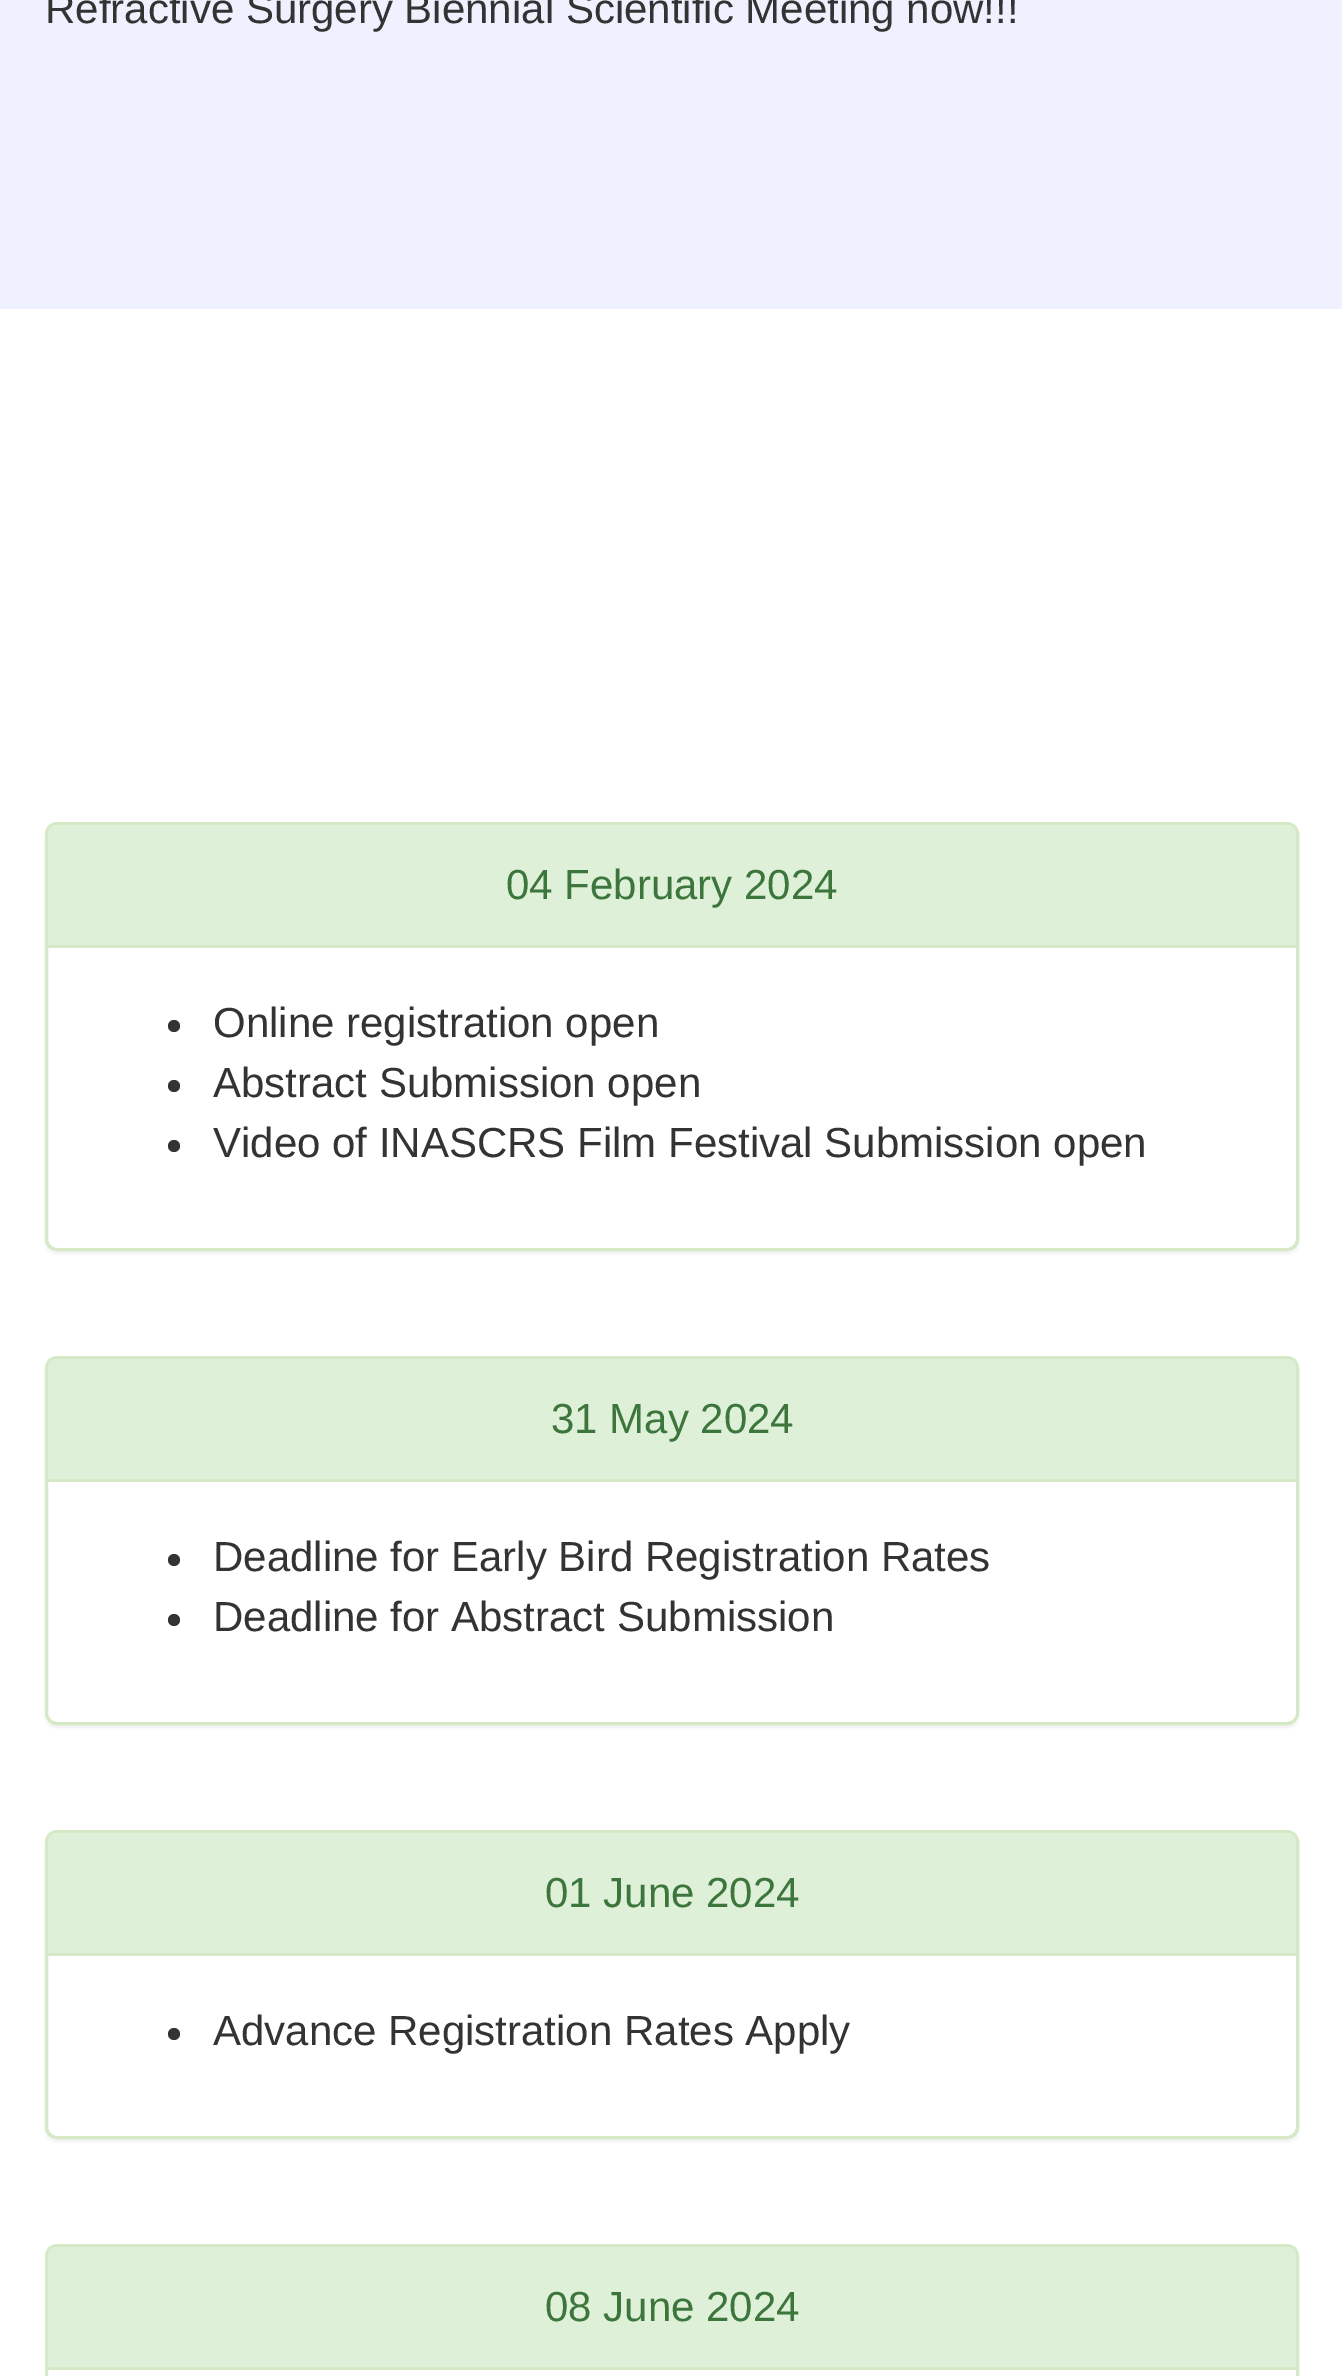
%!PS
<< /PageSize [1342 2376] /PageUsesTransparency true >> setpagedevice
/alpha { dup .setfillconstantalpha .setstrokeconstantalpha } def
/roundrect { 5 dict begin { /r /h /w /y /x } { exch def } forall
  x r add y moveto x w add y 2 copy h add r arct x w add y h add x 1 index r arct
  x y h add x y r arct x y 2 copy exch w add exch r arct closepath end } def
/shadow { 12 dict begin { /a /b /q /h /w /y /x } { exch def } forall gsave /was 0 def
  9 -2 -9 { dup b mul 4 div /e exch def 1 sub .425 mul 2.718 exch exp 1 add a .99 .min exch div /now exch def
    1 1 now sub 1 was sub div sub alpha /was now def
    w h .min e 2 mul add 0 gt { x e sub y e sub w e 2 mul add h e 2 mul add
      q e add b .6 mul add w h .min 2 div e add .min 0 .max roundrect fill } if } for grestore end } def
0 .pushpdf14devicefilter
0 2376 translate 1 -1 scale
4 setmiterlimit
1 setgray
0 0 1342 2376 rectfill
0.937 0.945 0.996 setrgbcolor
0 0 1342 309 rectfill
/LiberationSans-Regular [42 0 0 -42 0 0] selectfont
0.2 setgray
45 23 moveto (Refractive Surgery Biennial Scientific Meeting now!!!) show
0 setgray
45 825 1254 429 12 1.5 0.05 shadow
1 setgray
46.5 823.5 1251 426 10.5 roundrect gsave fill grestore
0.839 0.914 0.776 setrgbcolor
3 setlinewidth
stroke
0.875 0.941 0.847 setrgbcolor
newpath 57 825 moveto 1287 825 lineto 1292 825 1296 829 1296 834 curveto 1296 948 lineto 48 948 lineto 48 834 lineto 48 829 52 825 57 825 curveto closepath fill
0.839 0.914 0.776 setrgbcolor
48 945 1248 3 rectfill
0.235 0.463 0.239 setrgbcolor
506 899 moveto (04 February 2024) show
0.2 setgray
newpath 174 1026 6 0 360 arc closepath fill
213 1037 moveto (Online registration open) show
newpath 174 1086 6 0 360 arc closepath fill
213 1097 moveto (Abstract Submission open) show
newpath 174 1146 6 0 360 arc closepath fill
213 1157 moveto (Video of INASCRS Film Festival Submission open) show
0 setgray
45 1359 1254 369 12 1.5 0.05 shadow
1 setgray
46.5 1357.5 1251 366 10.5 roundrect gsave fill grestore
0.839 0.914 0.776 setrgbcolor
stroke
0.875 0.941 0.847 setrgbcolor
newpath 57 1359 moveto 1287 1359 lineto 1292 1359 1296 1363 1296 1368 curveto 1296 1482 lineto 48 1482 lineto 48 1368 lineto 48 1363 52 1359 57 1359 curveto closepath fill
0.839 0.914 0.776 setrgbcolor
48 1479 1248 3 rectfill
0.235 0.463 0.239 setrgbcolor
551 1433 moveto (31 May 2024) show
0.2 setgray
newpath 174 1560 6 0 360 arc closepath fill
213 1571 moveto (Deadline for Early Bird Registration Rates) show
newpath 174 1620 6 0 360 arc closepath fill
213 1631 moveto (Deadline for Abstract Submission) show
0 setgray
45 1833 1254 309 12 1.5 0.05 shadow
1 setgray
46.5 1831.5 1251 306 10.5 roundrect gsave fill grestore
0.839 0.914 0.776 setrgbcolor
stroke
0.875 0.941 0.847 setrgbcolor
newpath 57 1833 moveto 1287 1833 lineto 1292 1833 1296 1837 1296 1842 curveto 1296 1956 lineto 48 1956 lineto 48 1842 lineto 48 1837 52 1833 57 1833 curveto closepath fill
0.839 0.914 0.776 setrgbcolor
48 1953 1248 3 rectfill
0.235 0.463 0.239 setrgbcolor
545 1907 moveto (01 June 2024) show
0.2 setgray
newpath 174 2034 6 0 360 arc closepath fill
213 2045 moveto (Advance Registration Rates Apply) show
0.839 0.914 0.776 setrgbcolor
46.5 2245.5 1251 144 10.5 roundrect stroke
0.875 0.941 0.847 setrgbcolor
newpath 57 2247 moveto 1287 2247 lineto 1292 2247 1296 2251 1296 2256 curveto 1296 2370 lineto 48 2370 lineto 48 2256 lineto 48 2251 52 2247 57 2247 curveto closepath fill
0.839 0.914 0.776 setrgbcolor
48 2367 1248 3 rectfill
0.235 0.463 0.239 setrgbcolor
545 2321 moveto (08 June 2024) show
.poppdf14devicefilter showpage
